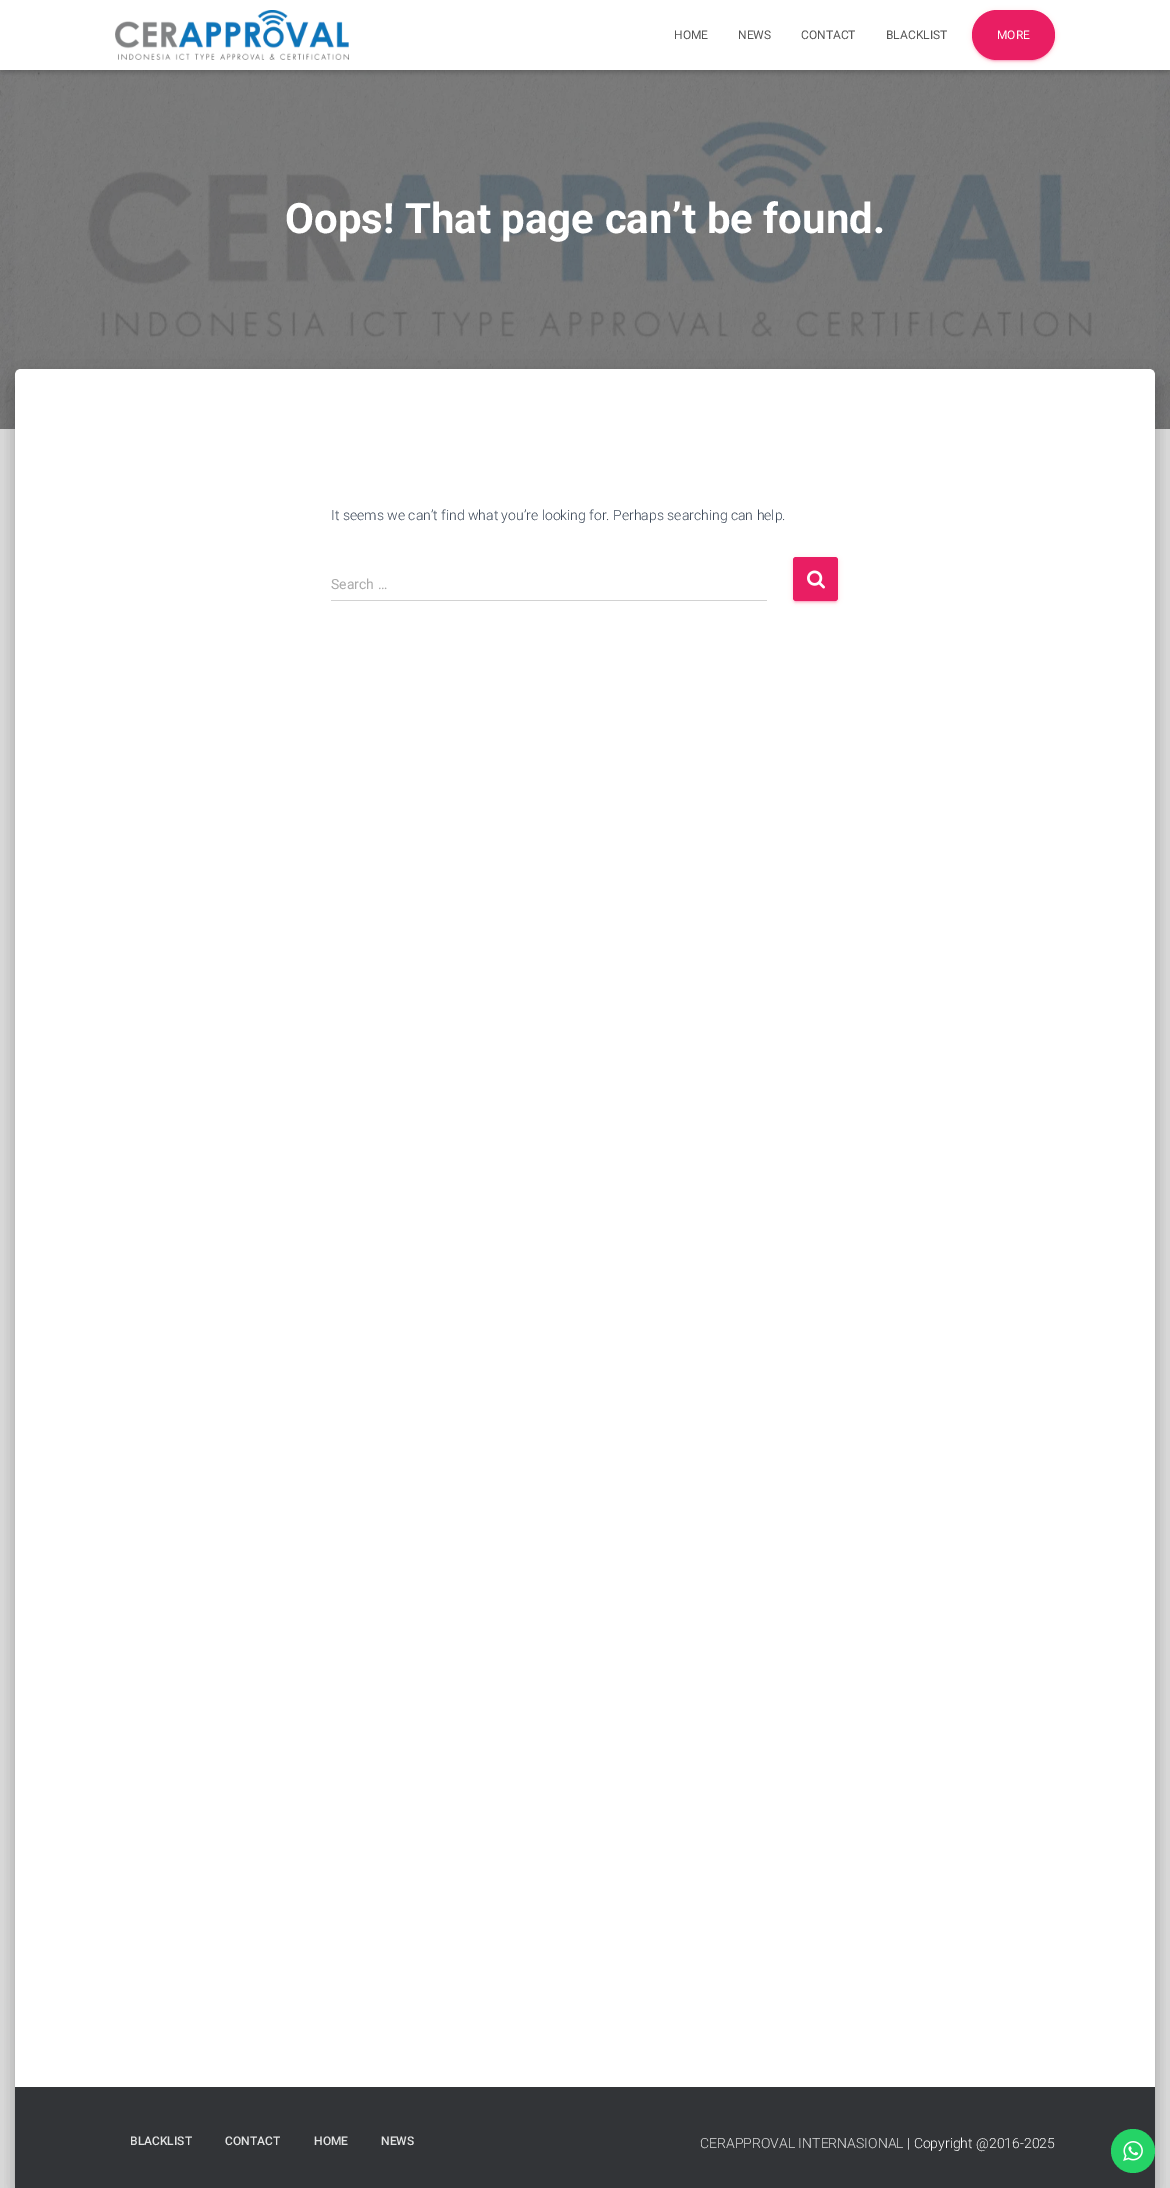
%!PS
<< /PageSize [1170 2188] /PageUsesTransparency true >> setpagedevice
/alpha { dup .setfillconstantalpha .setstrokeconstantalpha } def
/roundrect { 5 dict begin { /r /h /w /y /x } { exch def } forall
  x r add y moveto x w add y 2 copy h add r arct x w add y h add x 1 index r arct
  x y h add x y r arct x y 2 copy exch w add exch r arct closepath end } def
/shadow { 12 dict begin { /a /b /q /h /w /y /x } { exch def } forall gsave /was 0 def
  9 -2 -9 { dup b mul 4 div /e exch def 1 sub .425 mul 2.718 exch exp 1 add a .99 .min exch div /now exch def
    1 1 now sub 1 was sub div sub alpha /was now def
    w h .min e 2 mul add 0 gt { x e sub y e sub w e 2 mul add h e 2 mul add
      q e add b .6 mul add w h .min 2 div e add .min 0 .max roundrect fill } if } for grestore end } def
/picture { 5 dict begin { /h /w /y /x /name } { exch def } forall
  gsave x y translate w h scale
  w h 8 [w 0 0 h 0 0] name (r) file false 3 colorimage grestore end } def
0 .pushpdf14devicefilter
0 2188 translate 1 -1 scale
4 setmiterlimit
0.898 setgray
0 0 1170 2188 rectfill
(img2.rgb) 0 70 1170 359 picture
0 setgray
2 6 1166 66 0 2.5 0.1 shadow
0 1 1170 70 0 5 0.12 shadow
6 7 1158 58 0 5 0.42 shadow
1 setgray
0 0 1170 70 rectfill
(img1.rgb) 115 10 234 50 picture
/Roboto-Regular [12 0 0 -12 0 0] selectfont
0.333 setgray
674 39 moveto (HOME) show
738 39 moveto (NEWS) show
801 39 moveto (CONTACT) show
886 39 moveto (BLACKLIST) show
0.914 0.118 0.388 setrgbcolor
972 11 83 50 25 2.5 0.12 shadow
974 15 79 46 23 0.5 0.2 shadow
972 12 83 50 25 1 0.14 shadow
972 10 83 50 25 roundrect fill
1 setgray
997 39 moveto (MORE) show
/Roboto-Bold [42 0 0 -42 0 0] selectfont
285 233 moveto (Oops! That page can’t be found.) show
0 setgray
20 382 1130 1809 1 5 0.2 shadow
10 370 1150 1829 11 15 0.12 shadow
13 383 1144 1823 8 12 0.14 shadow
1 setgray
newpath 21 369 moveto 1149 369 lineto 1152.5 369 1155 371.5 1155 375 curveto 1155 2188 lineto 15 2188 lineto 15 375 lineto 15 371.5 17.5 369 21 369 curveto closepath fill
/Roboto-Light [14 0 0 -14 0 0] selectfont
0.235 0.282 0.345 setrgbcolor
331 520 moveto (It seems we can’t find what you’re looking for. Perhaps searching can help.) show
/Roboto-Regular [14 0 0 -14 0 0] selectfont
0.667 setgray
331 589 moveto (Search …) show
0.824 setgray
331 600 436 1 rectfill
0.914 0.118 0.388 setrgbcolor
793 558 45 44 3 2.5 0.12 shadow
795 562 41 40 1 0.5 0.2 shadow
793 559 45 44 3 1 0.14 shadow
793 557 45 44 3 roundrect fill
(img3.rgb) 807 570 18 19 picture
0.196 0.204 0.216 setrgbcolor
15 2087 1140 101 rectfill
/Roboto-Medium [12 0 0 -12 0 0] selectfont
0.886 0.89 0.89 setrgbcolor
130 2145 moveto (BLACKLIST) show
225 2145 moveto (CONTACT) show
314 2145 moveto (HOME) show
381 2145 moveto (NEWS) show
/Roboto-Light [14 0 0 -14 0 0] selectfont
700 2148 moveto (CERAPPROVAL INTERNASIONAL) show
1 setgray
907 2148 moveto (| Copyright @2016-2025) show
0.145 0.827 0.4 setrgbcolor
newpath 1133 2151 22 0 360 arc closepath fill
(img4.rgb) 1123 2141 20 20 picture
.poppdf14devicefilter showpage
